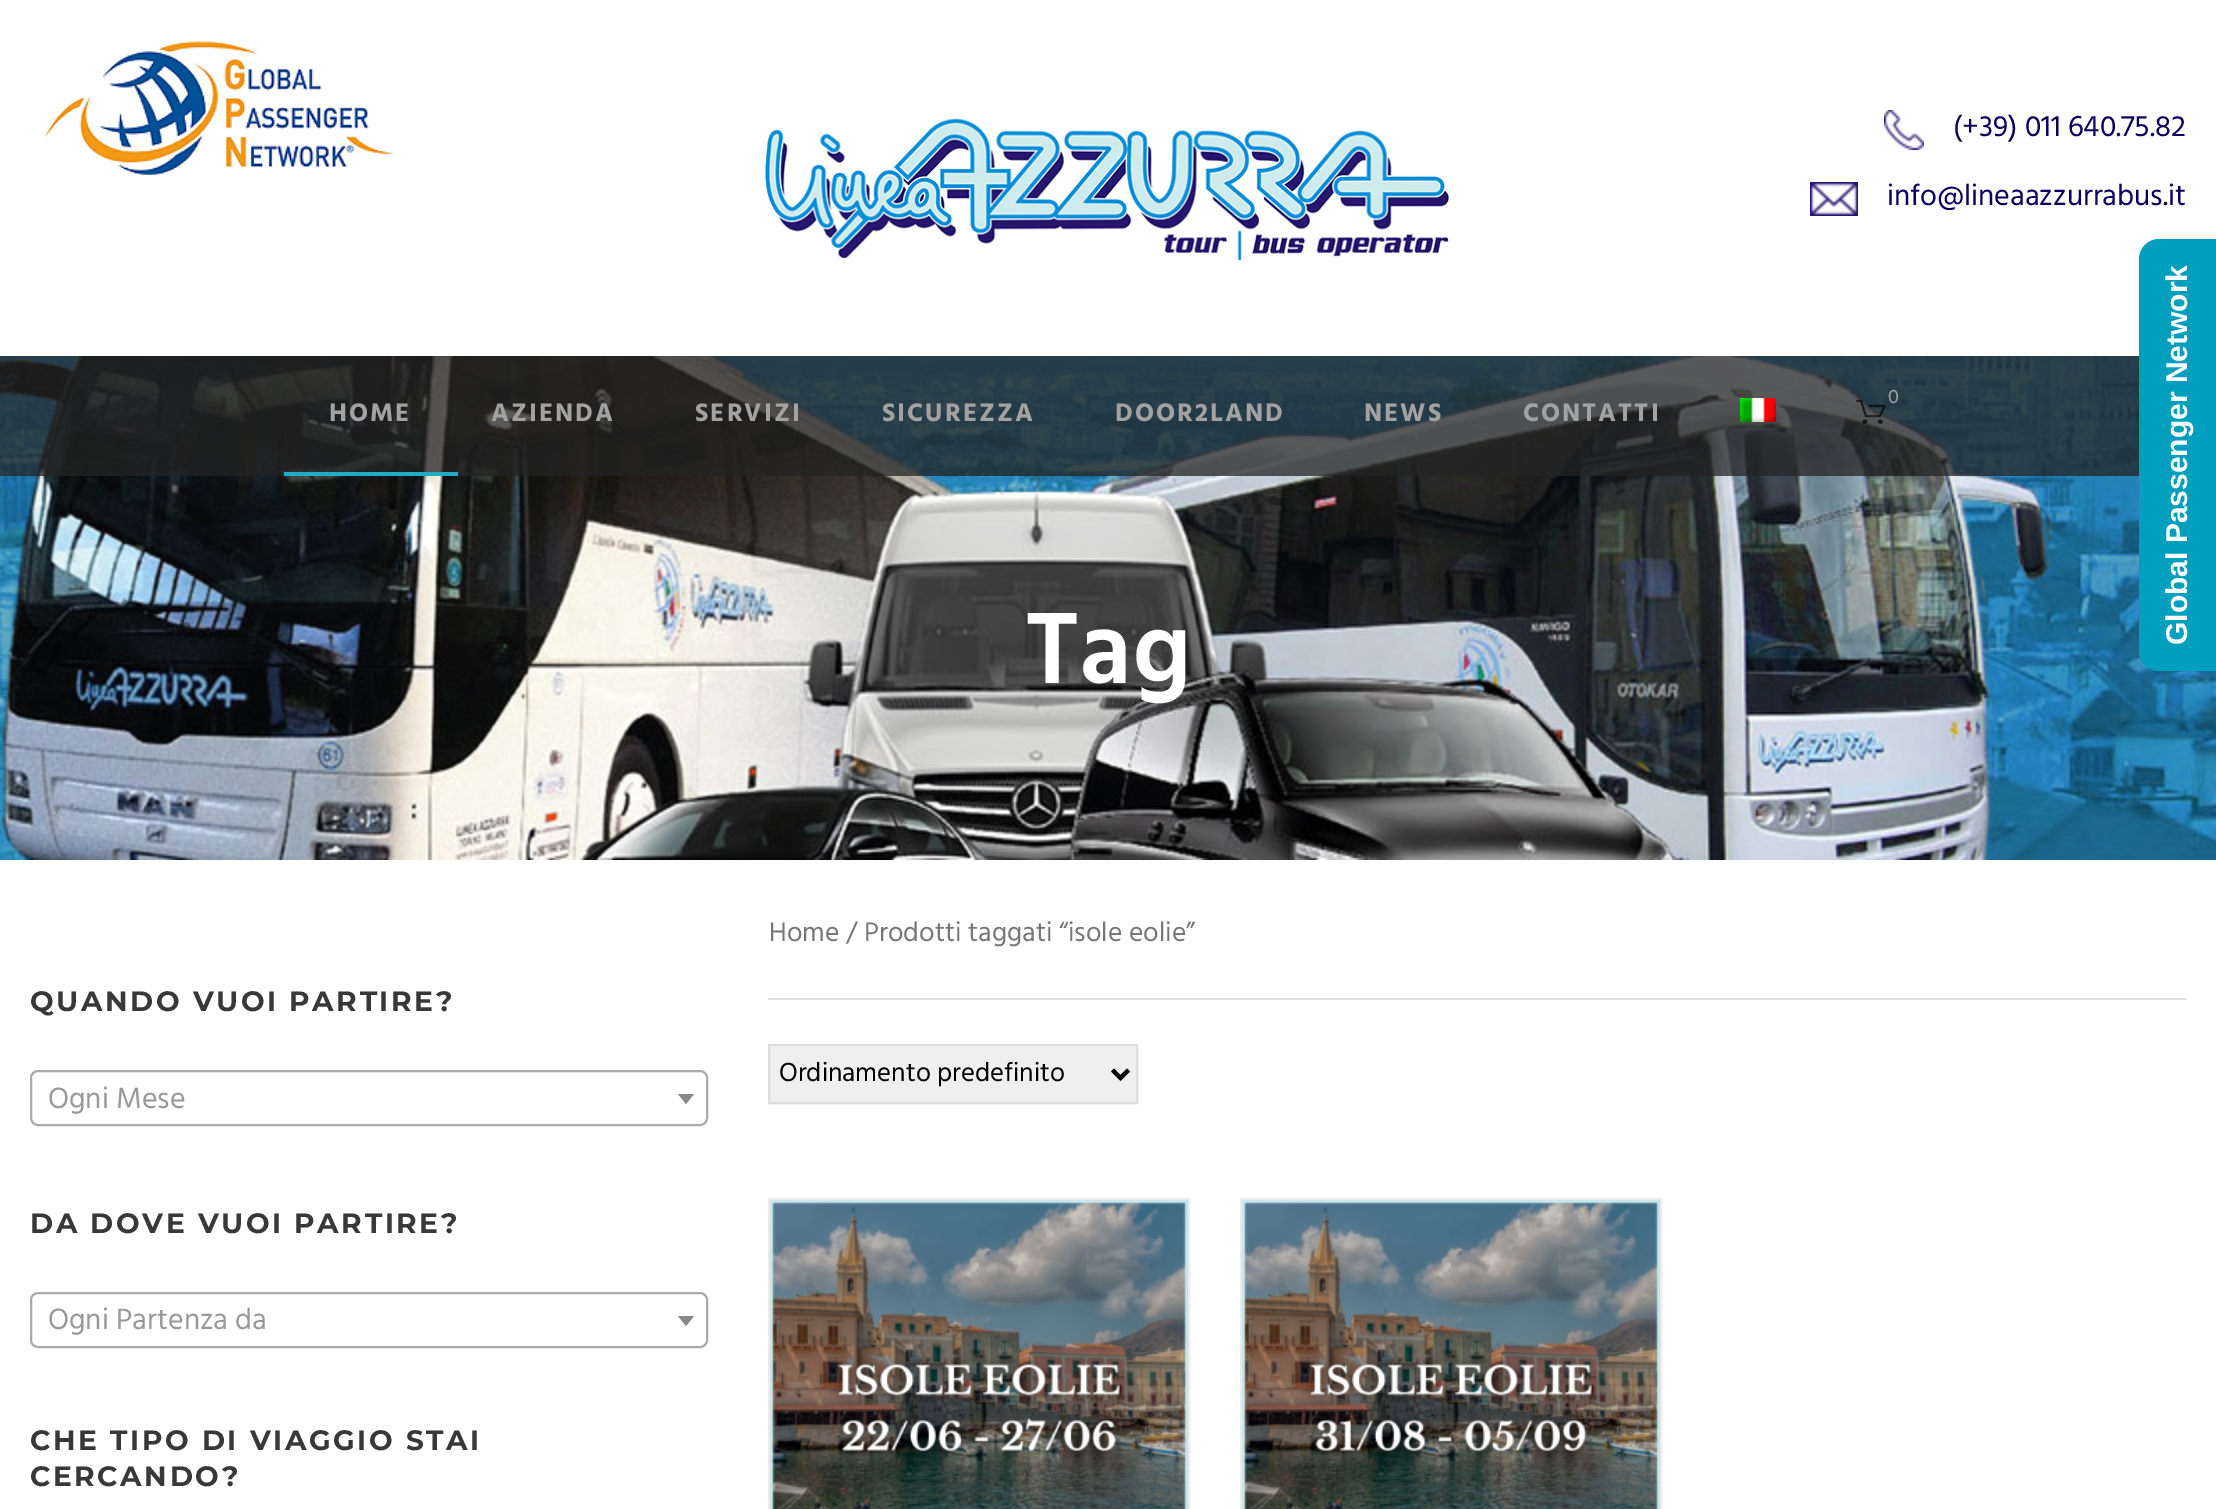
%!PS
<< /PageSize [2216 1509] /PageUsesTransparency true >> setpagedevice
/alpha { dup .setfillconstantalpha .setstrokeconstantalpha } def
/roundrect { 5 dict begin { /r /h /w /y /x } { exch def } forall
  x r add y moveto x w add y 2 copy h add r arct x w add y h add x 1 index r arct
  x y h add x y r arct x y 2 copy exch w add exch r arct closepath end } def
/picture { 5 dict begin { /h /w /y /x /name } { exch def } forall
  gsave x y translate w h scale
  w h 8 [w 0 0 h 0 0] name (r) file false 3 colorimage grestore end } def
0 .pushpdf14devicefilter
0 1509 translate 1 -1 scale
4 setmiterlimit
1 setgray
0 0 2216 1509 rectfill
(img1.rgb) 45 41 349 134 picture
(img2.rgb) 765 118 684 143 picture
(img3.rgb) 1884 110 40 40 picture
/Hind-Regular [30 0 0 -30 0 0] selectfont
0.043 0 0.369 setrgbcolor
1953 136 moveto (\(+39\) 011 640.75.82) show
(img4.rgb) 1810 182 48 34 picture
1887 205 moveto (info@lineaazzurrabus.it) show
(img7.rgb) 0 356 2216 504 picture
0.75 alpha
0.137 setgray
0 356 2139 120 rectfill
/Hind-Regular [20 0 0 -20 0 0] selectfont
1 alpha
0.635 setgray
1888 403 moveto (0) show
(img5.rgb) 1856 400 30 24 picture
/Hind-Bold [26 0 0 -26 0 0] selectfont
329 421 moveto 2 0 (HOME) ashow
491 421 moveto 2 0 (AZIENDA) ashow
695 421 moveto 2 0 (SERVIZI) ashow
882 421 moveto 2 0 (SICUREZZA) ashow
1115 421 moveto 2 0 (DOOR2LAND) ashow
1364 421 moveto 2 0 (NEWS) ashow
1523 421 moveto 2 0 (CONTATTI) ashow
(img6.rgb) 1740 398 36 24 picture
0.118 0.675 0.78 setrgbcolor
284 472 174 4 rectfill
/Hind-SemiBold [104 0 0 -104 0 0] selectfont
1 setgray
1025 683 moveto (Tag) show
/Montserrat-Bold [28 0 0 -28 0 0] selectfont
0.22 setgray
30 1011 moveto 2.6 0 (QUANDO VUOI PARTIRE?) ashow
0.667 setgray
2 setlinewidth
31 1071 676 54 7 roundrect stroke
/Hind-Regular [30 0 0 -30 0 0] selectfont
0.6 setgray
48 1108 moveto (Ogni Mese) show
0.533 setgray
newpath 678 1094 moveto 694 1094 lineto 686 1104 lineto closepath fill
/Montserrat-Bold [28 0 0 -28 0 0] selectfont
0.22 setgray
30 1233 moveto 2.6 0 (DA DOVE VUOI PARTIRE?) ashow
0.667 setgray
31 1293 676 54 7 roundrect stroke
/Hind-Regular [30 0 0 -30 0 0] selectfont
0.6 setgray
48 1329 moveto (Ogni Partenza da) show
0.533 setgray
newpath 678 1316 moveto 694 1316 lineto 686 1326 lineto closepath fill
/Montserrat-Bold [28 0 0 -28 0 0] selectfont
0.22 setgray
30 1450 moveto 2.6 0 (CHE TIPO DI VIAGGIO STAI) ashow
30 1486 moveto 2.6 0 (CERCANDO?) ashow
0.867 setgray
768 998 1418 2 rectfill
/Hind-Regular [27.6 0 0 -27.6 0 0] selectfont
0.463 setgray
769 941 moveto (Home / Prodotti taggati “isole eolie”) show
0.937 setgray
newpath 769 1045 moveto 1137 1045 lineto 1137 1103 lineto 769 1103 lineto closepath gsave fill grestore
0.867 setgray
stroke
0 setgray
4 setlinewidth
newpath 1112.5 1070 moveto 1120.5 1078 lineto 1128.5 1070 lineto stroke
/Hind-Regular [26.75 0 0 -26.75 0 0] selectfont
779 1081 moveto (Ordinamento predefinito) show
0.922 setgray
2 setlinewidth
769 1199 420 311 rectstroke
(img8.rgb) 770 1200 418 309 picture
1241 1199 420 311 rectstroke
(img9.rgb) 1242 1200 418 309 picture
0 0.624 0.741 setrgbcolor
newpath 2139 651 moveto 2139 259 lineto 2139 248 2148 239 2159 239 curveto 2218 239 lineto 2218 671 lineto 2159 671 lineto 2148 671 2139 662 2139 651 curveto closepath fill
/LiberationSans-Bold [30 0 0 -30 0 0] selectfont
1 setgray
gsave 2187 645 translate -90 rotate 0 0 moveto (Global Passenger Network) show grestore
.poppdf14devicefilter showpage
